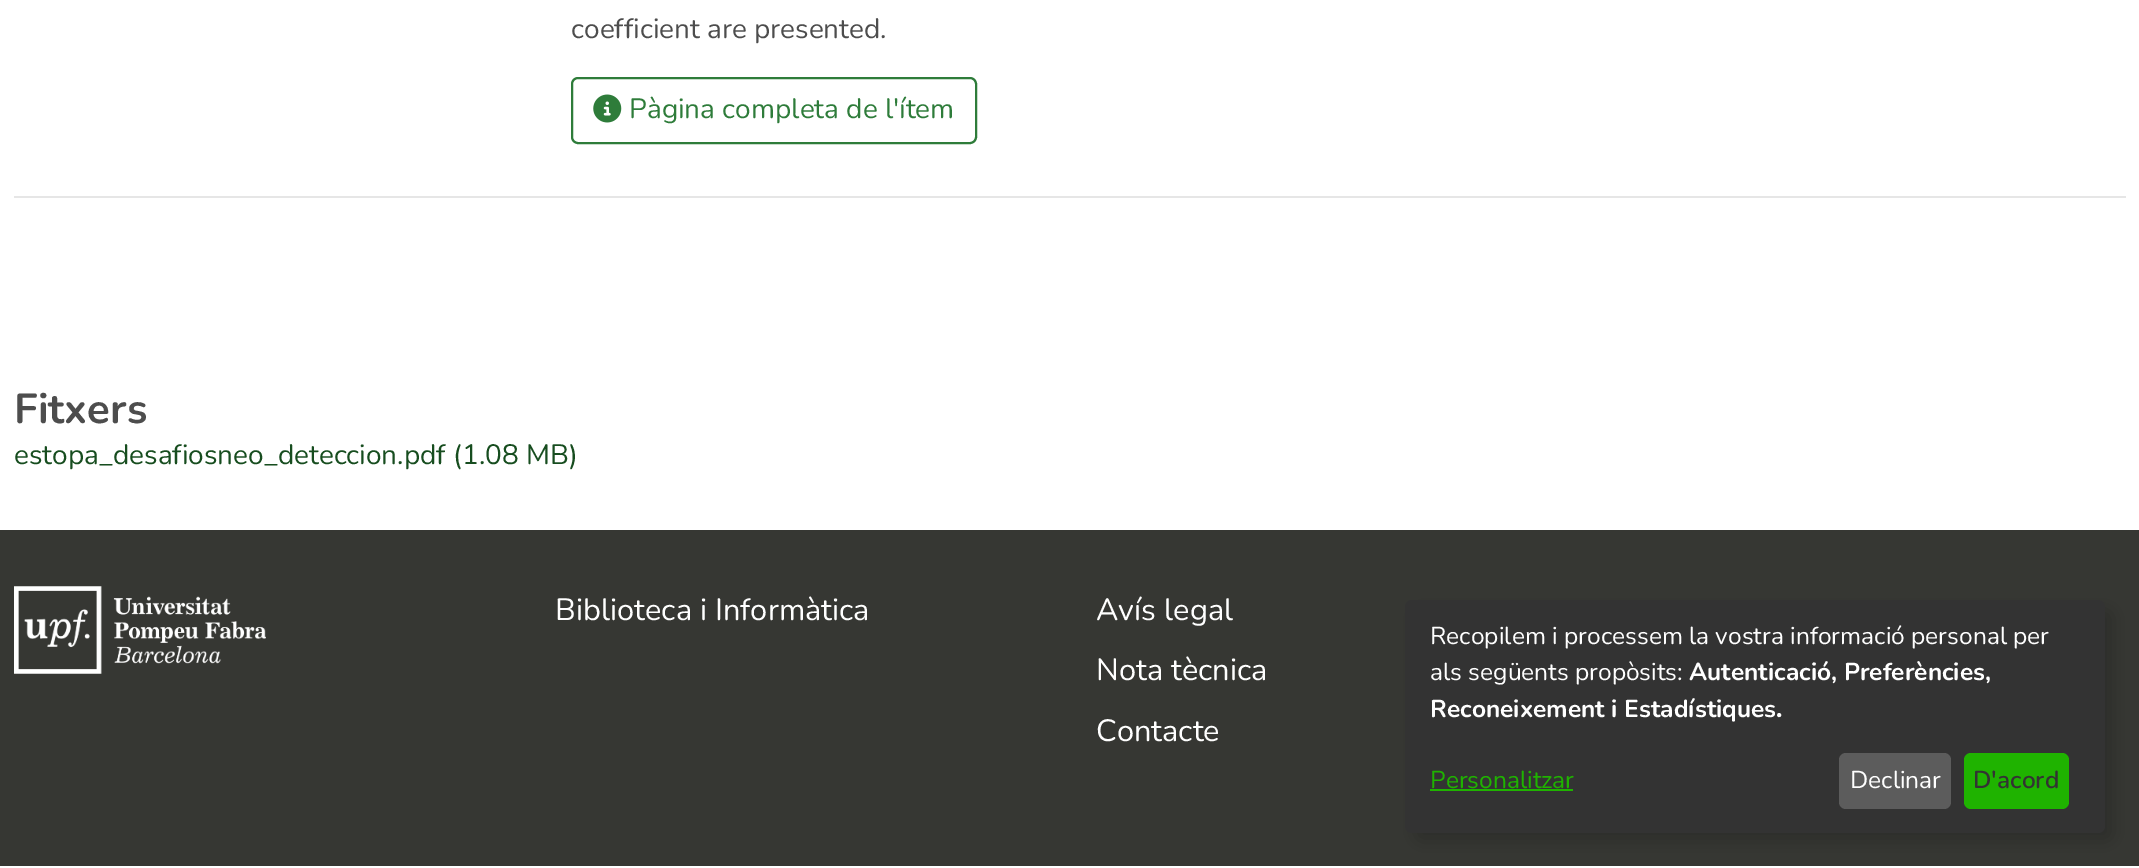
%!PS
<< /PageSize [2139 868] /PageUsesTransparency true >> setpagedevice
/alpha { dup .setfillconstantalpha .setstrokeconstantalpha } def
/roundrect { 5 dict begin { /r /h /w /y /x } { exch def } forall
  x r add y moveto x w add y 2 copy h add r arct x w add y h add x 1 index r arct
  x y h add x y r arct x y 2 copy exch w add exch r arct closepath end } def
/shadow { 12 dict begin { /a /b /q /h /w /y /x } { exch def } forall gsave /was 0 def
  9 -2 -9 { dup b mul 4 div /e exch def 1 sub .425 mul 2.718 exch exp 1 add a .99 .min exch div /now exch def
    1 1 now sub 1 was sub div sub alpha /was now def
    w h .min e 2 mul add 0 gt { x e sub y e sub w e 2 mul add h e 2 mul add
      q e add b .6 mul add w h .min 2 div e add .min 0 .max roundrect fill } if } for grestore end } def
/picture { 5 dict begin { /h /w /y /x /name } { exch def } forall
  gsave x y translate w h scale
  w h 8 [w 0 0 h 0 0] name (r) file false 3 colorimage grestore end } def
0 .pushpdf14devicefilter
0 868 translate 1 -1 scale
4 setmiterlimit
1 setgray
0 0 2139 868 rectfill
/Nunito-Regular [28 0 0 -28 0 0] selectfont
0.302 setgray
571 38 moveto (coefficient are presented.) show
0.18 0.486 0.227 setrgbcolor
2 setlinewidth
572 78 404 65 6 roundrect stroke
(img1.rgb) 593 94 29 29 picture
629 118 moveto (Pàgina completa de l'ítem) show
0.902 setgray
14 196 2112 2 rectfill
/Nunito-Bold [42 0 0 -42 0 0] selectfont
0.302 setgray
14 423 moveto (Fitxers) show
/Nunito-Regular [28 0 0 -28 0 0] selectfont
0.09 0.302 0.122 setrgbcolor
14 464 moveto (estopa_desafiosneo_deteccion.pdf \(1.08 MB\)) show
0.212 0.216 0.2 setrgbcolor
0 530 2139 336 rectfill
(img2.rgb) 14 586 252 88 picture
/Nunito-Regular [30.75 0 0 -30.75 0 0] selectfont
1 setgray
555 620 moveto (Biblioteca i Informàtica) show
1096 620 moveto (Avís legal) show
1096 680 moveto (Nota tècnica) show
1096 741 moveto (Contacte) show
0 setgray
1414 609 700 233 7 9 0.19 shadow
0.2 setgray
1405 600 700 233 7 roundrect fill
/Nunito-Regular [24.5 0 0 -24.5 0 0] selectfont
1 setgray
1430 644 moveto (Recopilem i processem la vostra informació personal per) show
1430 680 moveto (als següents propòsits:) show
/Nunito-Bold [24.5 0 0 -24.5 0 0] selectfont
1689 680 moveto (Autenticació, Preferències,) show
1430 717 moveto (Reconeixement i Estadístiques) show
/Nunito-ExtraBold [24.5 0 0 -24.5 0 0] selectfont
1776 717 moveto (.) show
/Nunito-Regular [24.5 0 0 -24.5 0 0] selectfont
0.122 0.702 0 setrgbcolor
1430 788 moveto (Personalitzar) show
1430 789 143 2 rectfill
0.361 setgray
1839 753 112 56 7 roundrect fill
1 setgray
1850 788 moveto (Declinar) show
0.122 0.702 0 setrgbcolor
1964 753 105 56 7 roundrect fill
/Nunito-SemiBold [24.5 0 0 -24.5 0 0] selectfont
0.2 setgray
1973 788 moveto (D'acord) show
.poppdf14devicefilter showpage
